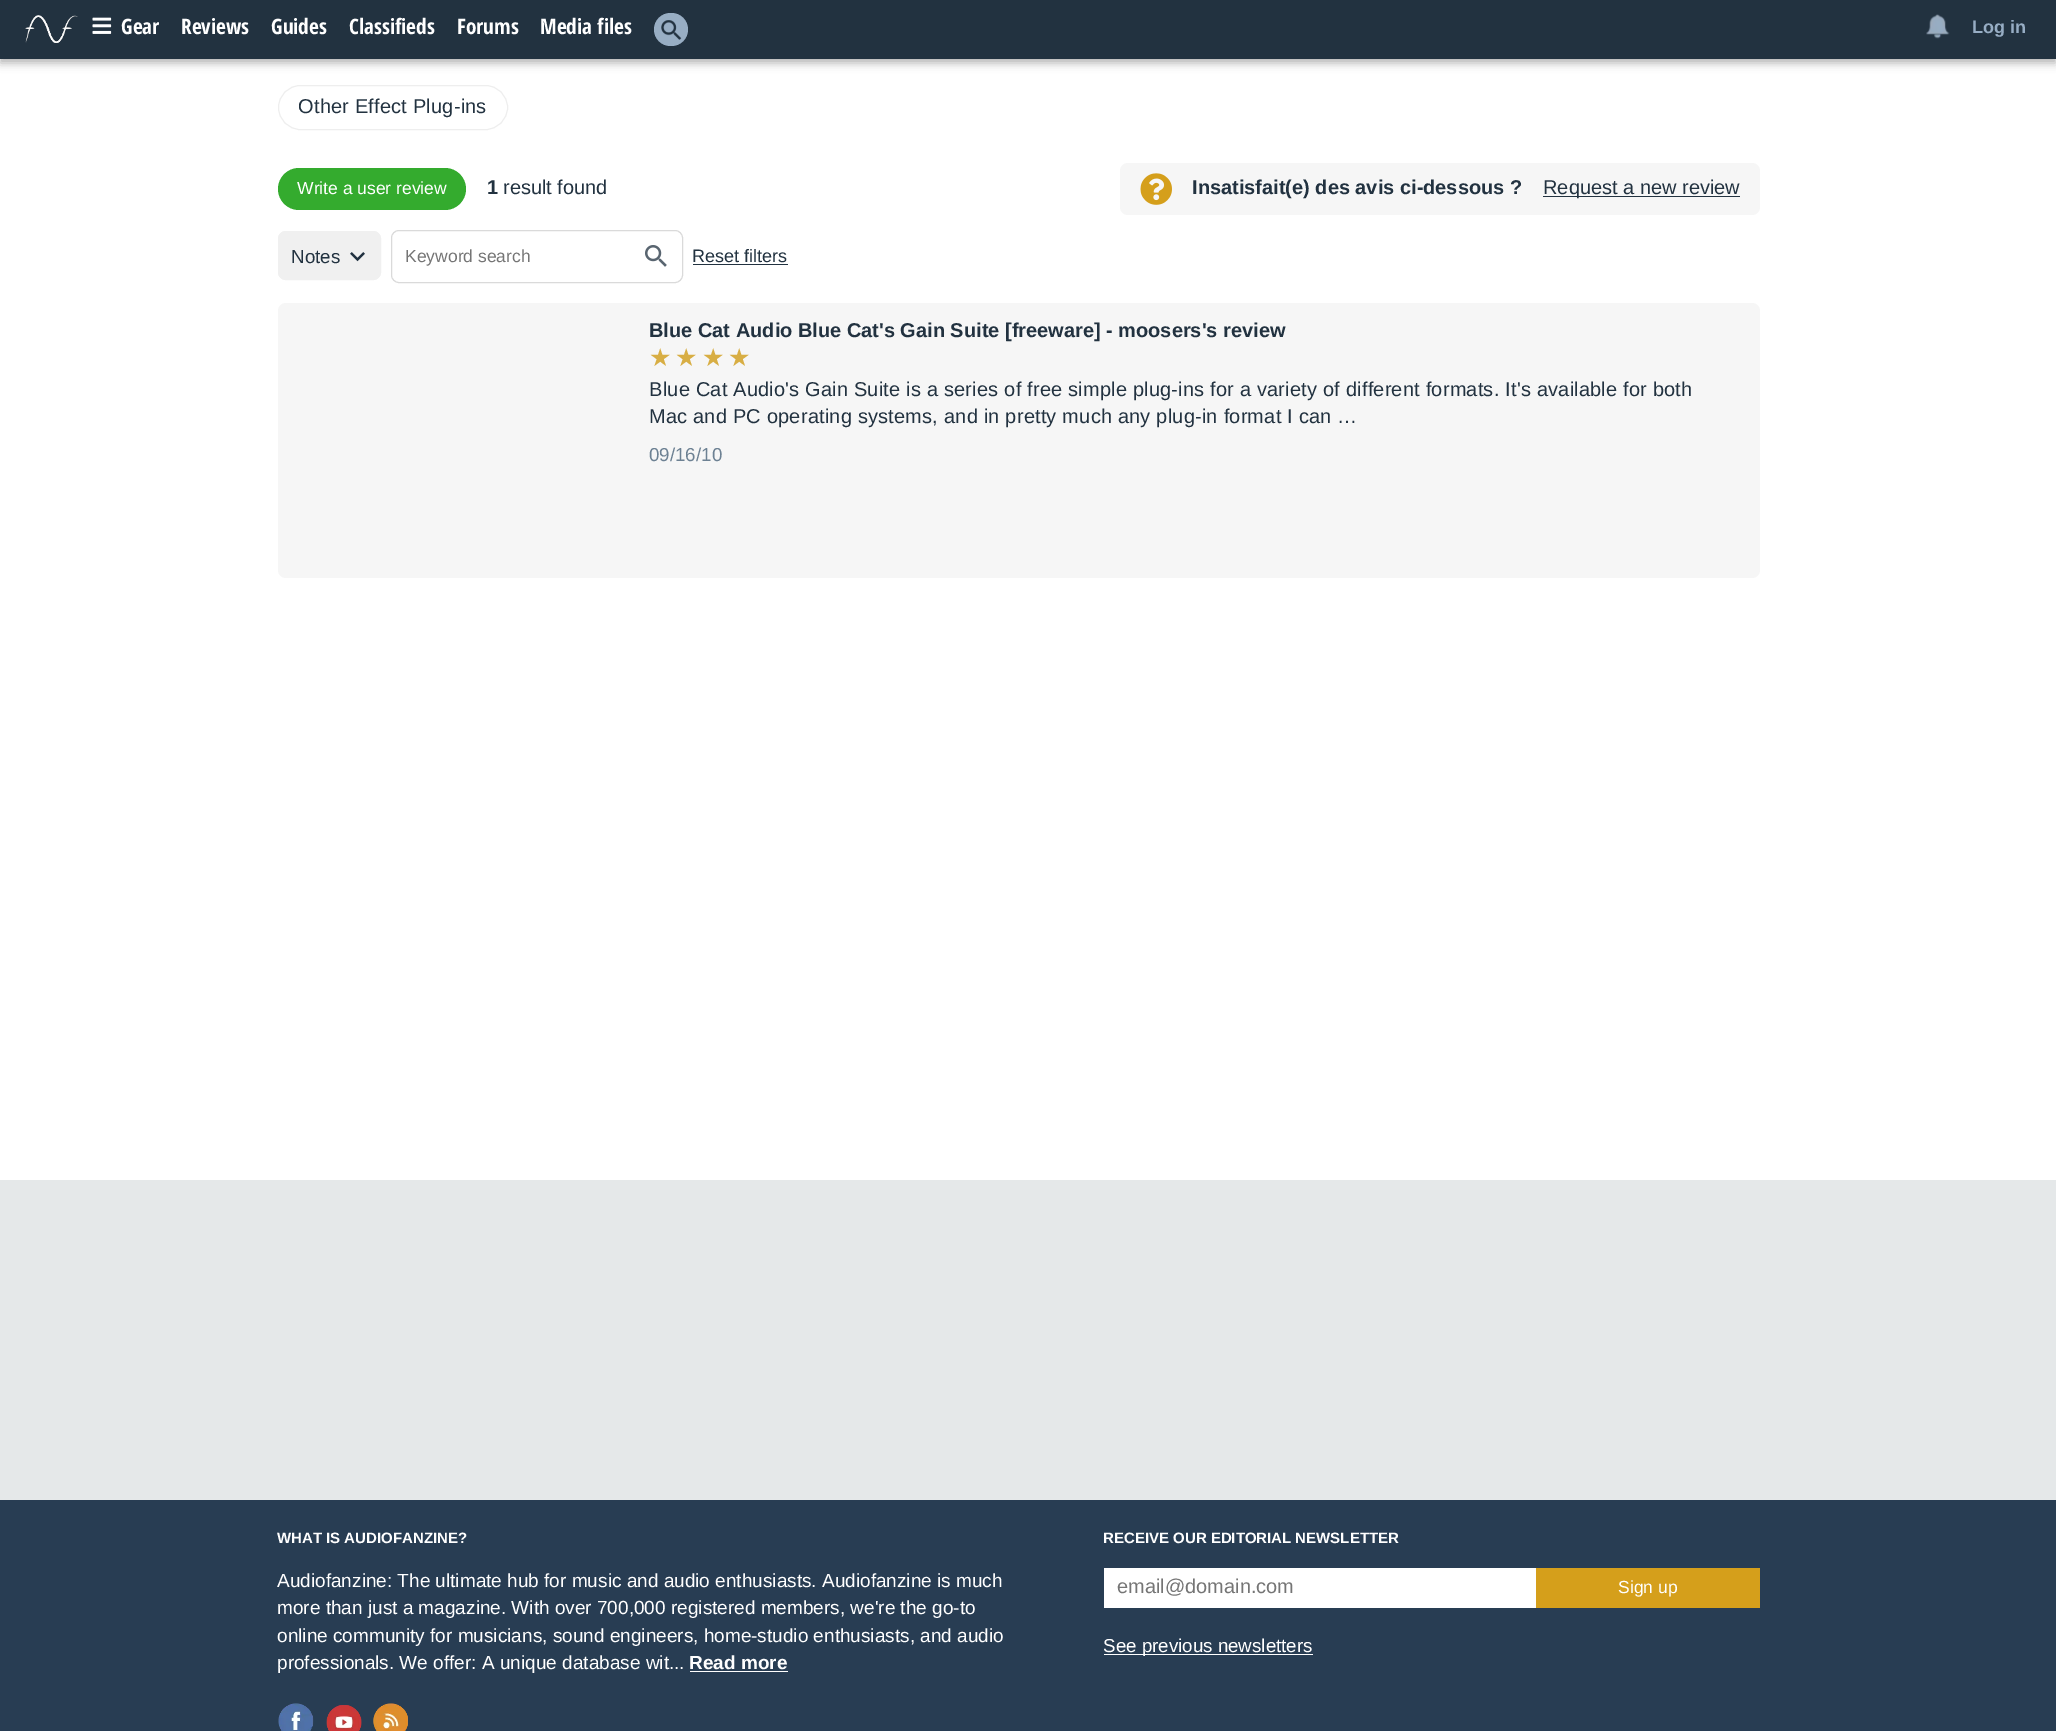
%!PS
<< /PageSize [2056 1731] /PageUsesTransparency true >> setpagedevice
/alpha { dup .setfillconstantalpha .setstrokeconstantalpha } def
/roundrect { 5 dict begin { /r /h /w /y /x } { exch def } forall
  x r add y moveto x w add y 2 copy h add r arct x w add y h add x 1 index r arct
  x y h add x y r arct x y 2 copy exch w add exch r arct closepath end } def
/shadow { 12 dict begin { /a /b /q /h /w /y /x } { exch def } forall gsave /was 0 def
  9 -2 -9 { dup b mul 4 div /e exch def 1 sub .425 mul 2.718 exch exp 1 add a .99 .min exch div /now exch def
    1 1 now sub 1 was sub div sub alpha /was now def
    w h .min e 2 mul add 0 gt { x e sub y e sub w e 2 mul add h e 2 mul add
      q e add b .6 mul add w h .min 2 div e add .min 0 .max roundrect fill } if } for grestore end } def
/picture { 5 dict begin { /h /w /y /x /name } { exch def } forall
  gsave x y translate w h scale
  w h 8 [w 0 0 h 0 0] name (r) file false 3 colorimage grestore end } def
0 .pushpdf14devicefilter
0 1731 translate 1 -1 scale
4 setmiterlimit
1 setgray
0 0 2056 1731 rectfill
0 setgray
0 4 2056 59 0 4.5 0.3 shadow
0.133 0.196 0.251 setrgbcolor
0 0 2056 59 rectfill
(img1.rgb) 25 15 53 29 picture
(img2.rgb) 92 17 20 17 picture
/OpenSansCondensed-Bold [21.25 0 0 -21.25 0 0] selectfont
1 setgray
121 34 moveto (Gear) show
181 34 moveto (Reviews) show
271 34 moveto (Guides) show
349 34 moveto (Classifieds) show
457 34 moveto (Forums) show
540 34 moveto (Media files) show
0.596 0.682 0.769 setrgbcolor
654 13 34 33 16.5 roundrect fill
(img3.rgb) 661 20 21 20 picture
0.933 setgray
278.5 85.5 229 44 22 roundrect stroke
/LiberationSans-Regular [20 0 0 -20 0 0] selectfont
0.133 0.196 0.251 setrgbcolor
298 113 moveto 0.2 0 (Other Effect Plug-ins) ashow
0.204 0.671 0.18 setrgbcolor
278 168 188 42 21 roundrect fill
/LiberationSans-Regular [17.5 0 0 -17.5 0 0] selectfont
1 setgray
297 194 moveto (Write a user review) show
/LiberationSans-Bold [20 0 0 -20 0 0] selectfont
0.133 0.196 0.251 setrgbcolor
487 194 moveto (1) show
/LiberationSans-Regular [20 0 0 -20 0 0] selectfont
503 194 moveto (result found) show
0.965 setgray
1120 163 640 52 8 roundrect fill
(img4.rgb) 1140 173 32 32 picture
/LiberationSans-Bold [20 0 0 -20 0 0] selectfont
0.133 0.196 0.251 setrgbcolor
1192 194 moveto (Insatisfait\(e\) des avis ci-dessous ?) show
1543 196 197 1 rectfill
/LiberationSans-Regular [20 0 0 -20 0 0] selectfont
1543 194 moveto (Request a new review) show
0.941 setgray
278 231 103 49 8 roundrect fill
(img5.rgb) 350 252 15 10 picture
278.5 231.5 102 48 7.5 roundrect stroke
/LiberationSans-Regular [18.75 0 0 -18.75 0 0] selectfont
0.133 0.196 0.251 setrgbcolor
291 263 moveto (Notes) show
0.855 setgray
391.5 230.5 291 52 7.5 roundrect stroke
/LiberationSans-Regular [17.5 0 0 -17.5 0 0] selectfont
0.459 setgray
405 262 moveto (Keyword search) show
(img6.rgb) 645 245 22 22 picture
/LiberationSans-Regular [18 0 0 -18 0 0] selectfont
0.133 0.196 0.251 setrgbcolor
692 262 moveto (Reset filters) show
693 264 95 1 rectfill
0.965 setgray
278 303 1482 275 8 roundrect fill
/LiberationSans-Bold [20 0 0 -20 0 0] selectfont
0.133 0.196 0.251 setrgbcolor
649 337 moveto (Blue Cat Audio Blue Cat's Gain Suite [freeware] - moosers's review) show
/DejaVuSans-Regular [25 0 0 -25 0 0] selectfont
0.847 0.682 0.267 setrgbcolor
649 366 moveto 4 0 (★★★★) ashow
/LiberationSans-Regular [20 0 0 -20 0 0] selectfont
0.133 0.196 0.251 setrgbcolor
649 396 moveto 0.2 0 (Blue Cat Audio's Gain Suite is a series of free simple plug-ins for a variety of different formats. It's available for both) ashow
649 423 moveto 0.2 0 (Mac and PC operating systems, and in pretty much any plug-in format I can …) ashow
/LiberationSans-Regular [18.75 0 0 -18.75 0 0] selectfont
0.427 0.506 0.576 setrgbcolor
649 461 moveto (09/16/10) show
(img7.rgb) 1926 14 24 25 picture
/LiberationSans-Bold [18 0 0 -18 0 0] selectfont
0.592 0.678 0.769 setrgbcolor
1972 33 moveto (Log in) show
0.898 0.91 0.914 setrgbcolor
0 1180 2056 320 rectfill
0.157 0.239 0.325 setrgbcolor
0 1500 2056 231 rectfill
/LiberationSans-Bold [15 0 0 -15 0 0] selectfont
1 setgray
277 1543 moveto (WHAT IS AUDIOFANZINE?) show
/LiberationSans-Regular [19 0 0 -19 0 0] selectfont
277 1587 moveto (Audiofanzine: The ultimate hub for music and audio enthusiasts. Audiofanzine is much) show
277 1614 moveto (more than just a magazine. With over 700,000 registered members, we're the go-to) show
277 1642 moveto (online community for musicians, sound engineers, home-studio enthusiasts, and audio) show
277 1669 moveto (professionals. We offer: A unique database wit...) show
/LiberationSans-Bold [19 0 0 -19 0 0] selectfont
689 1669 moveto (Read more) show
690 1671 98 1 rectfill
(img8.rgb) 278 1703 36 28 picture
(img9.rgb) 326 1705 36 26 picture
(img10.rgb) 373 1703 35 28 picture
/LiberationSans-Bold [15 0 0 -15 0 0] selectfont
1103 1543 moveto (RECEIVE OUR EDITORIAL NEWSLETTER) show
1104 1568 432 40 rectfill
/LiberationSans-Regular [20 0 0 -20 0 0] selectfont
0.459 setgray
1117 1593 moveto (email@domain.com) show
0.835 0.624 0.106 setrgbcolor
1536 1568 224 40 rectfill
/LiberationSans-Regular [17.5 0 0 -17.5 0 0] selectfont
1 setgray
1618 1593 moveto (Sign up) show
1104 1654 209 1 rectfill
/LiberationSans-Regular [18.75 0 0 -18.75 0 0] selectfont
1103 1652 moveto (See previous newsletters) show
.poppdf14devicefilter showpage
